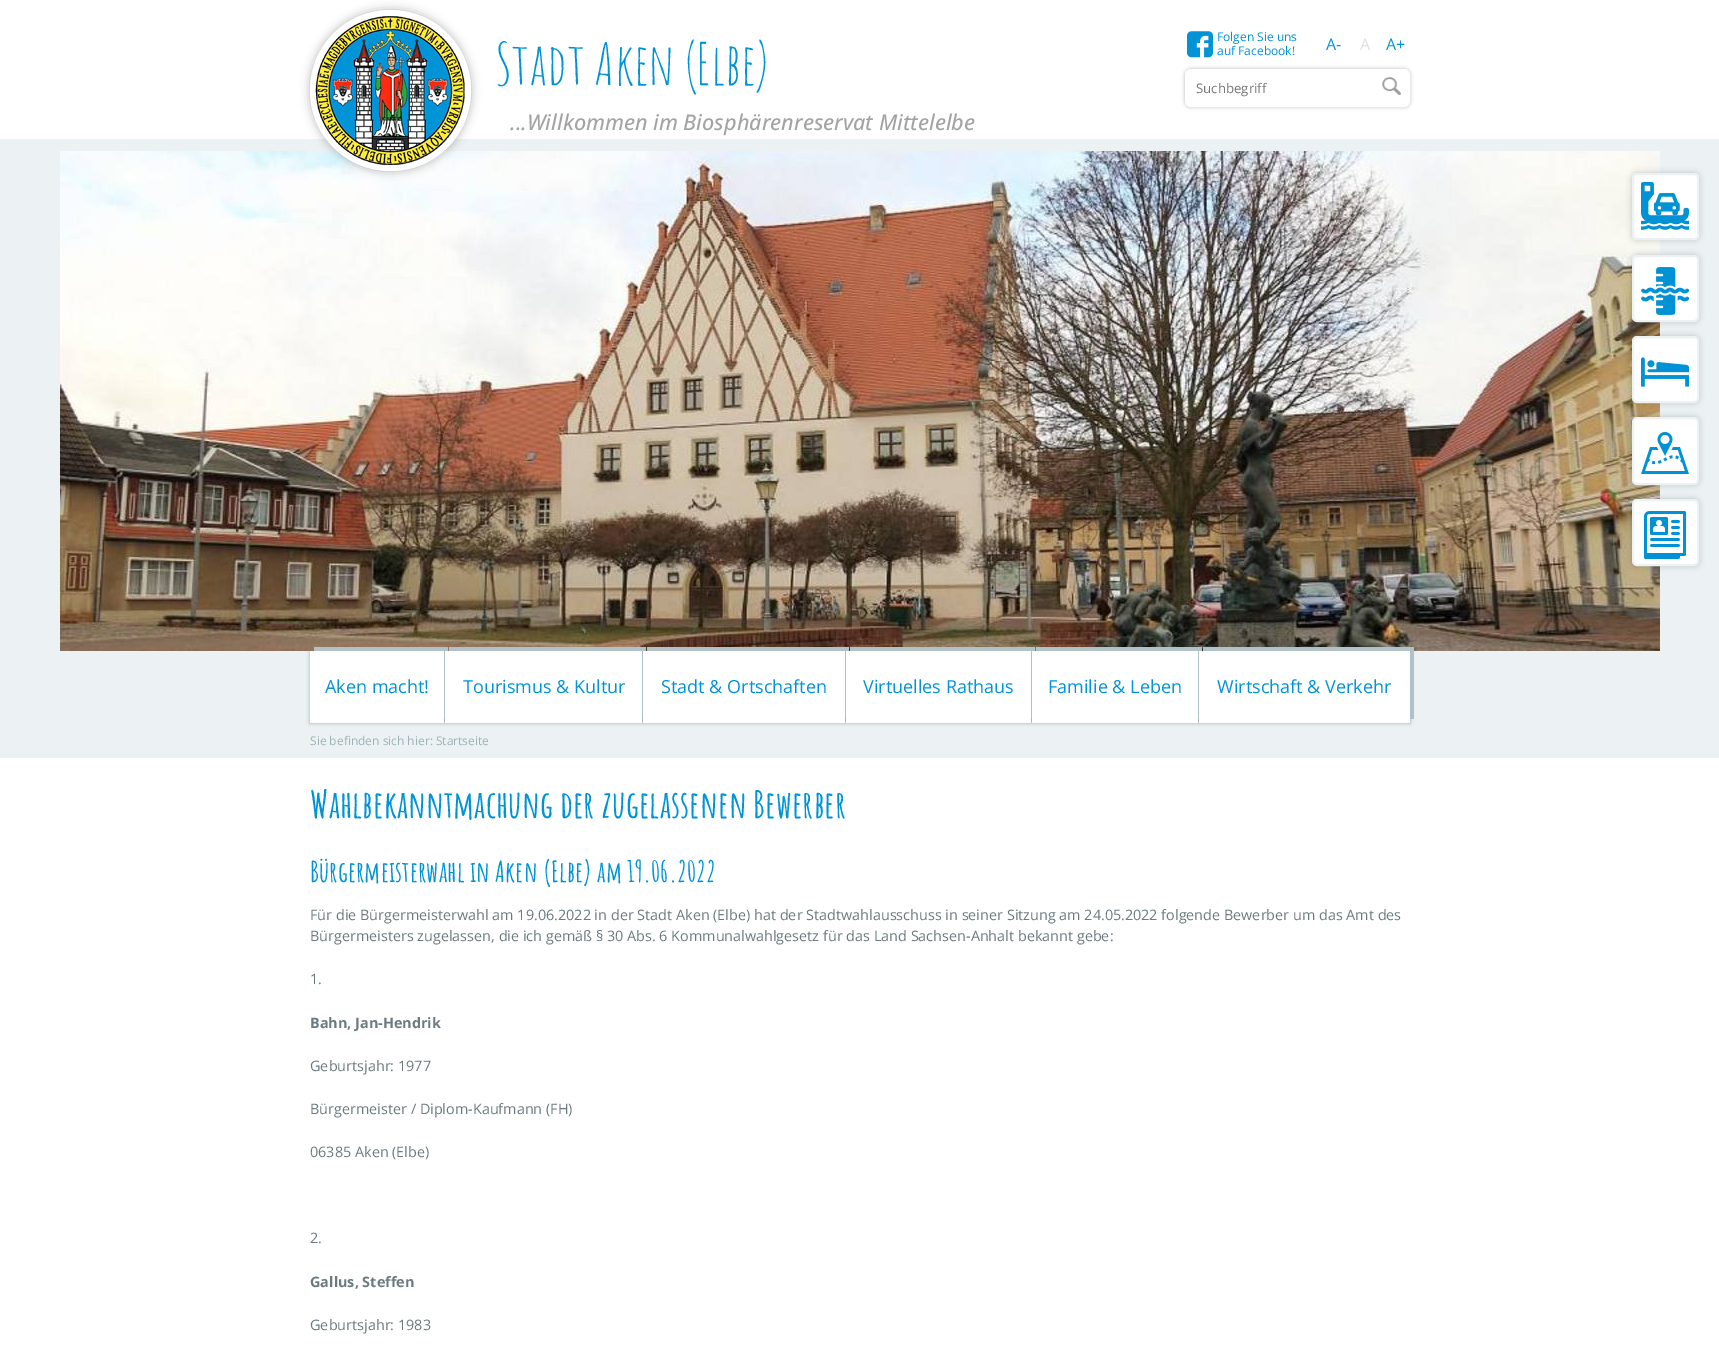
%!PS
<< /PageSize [1719 1349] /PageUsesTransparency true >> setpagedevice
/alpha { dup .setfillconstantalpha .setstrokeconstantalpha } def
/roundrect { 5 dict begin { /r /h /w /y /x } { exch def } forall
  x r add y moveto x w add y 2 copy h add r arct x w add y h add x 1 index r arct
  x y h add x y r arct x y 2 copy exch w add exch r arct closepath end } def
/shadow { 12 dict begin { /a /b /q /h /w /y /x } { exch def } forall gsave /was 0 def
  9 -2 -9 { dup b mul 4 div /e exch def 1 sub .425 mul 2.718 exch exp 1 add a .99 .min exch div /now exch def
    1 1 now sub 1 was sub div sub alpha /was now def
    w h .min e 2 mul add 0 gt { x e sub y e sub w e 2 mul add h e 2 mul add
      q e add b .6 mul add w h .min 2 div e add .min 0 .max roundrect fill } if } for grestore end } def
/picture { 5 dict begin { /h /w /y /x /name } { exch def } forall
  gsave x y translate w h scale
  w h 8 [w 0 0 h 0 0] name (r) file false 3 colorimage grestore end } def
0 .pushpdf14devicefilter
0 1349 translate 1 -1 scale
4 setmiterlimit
0.925 0.949 0.957 setrgbcolor
0 0 1719 1349 rectfill
1 setgray
0 0 1719 139 rectfill
0 setgray
310 651 1100 72 0 2 0.3 shadow
(img4.rgb) 60 151 1600 500 picture
310 10 161 161 80 5 0.3 shadow
1 setgray
310 10 161 161 80 roundrect fill
(img1.rgb) 315 16 150 149 picture
/AmaticSC-Regular [57.5 0 0 -57.5 0 0] selectfont
0 0.576 0.839 setrgbcolor
495 85 moveto (Stadt Aken \(Elbe\)) show
/OpenSans-MediumItalic [21.6 0 0 -21.6 0 0] selectfont
0.639 setgray
510 130 moveto (...Willkommen im Biosphärenreservat Mittelelbe) show
(img2.rgb) 1187 31 26 27 picture
/OpenSans-Regular [12 0 0 -12 0 0] selectfont
0 0.576 0.839 setrgbcolor
1217 41 moveto (Folgen Sie uns) show
1217 55 moveto (auf Facebook!) show
/OpenSans-Regular [16 0 0 -16 0 0] selectfont
1326 50 moveto (A-) show
0.875 setgray
1360 50 moveto (A) show
0 0.576 0.839 setrgbcolor
1386 50 moveto (A+) show
0 setgray
1185 69 225 38 6 2 0.3 shadow
1 setgray
1185.5 69.5 224 37 5.5 roundrect gsave fill grestore
stroke
/OpenSans-Regular [13.25 0 0 -13.25 0 0] selectfont
0.459 setgray
1196 93 moveto (Suchbegriff) show
(img3.rgb) 1382 77 19 18 picture
0 setgray
1632 173 67 67 5 3 0.2 shadow
1 setgray
1632 173 67 67 5 roundrect fill
(img5.rgb) 1641 182 48 48 picture
0.925 0.949 0.957 setrgbcolor
2 setlinewidth
1633 174 65 65 4 roundrect stroke
0 setgray
1632 255 67 67 5 3 0.2 shadow
1 setgray
1633 256 65 65 4 roundrect gsave fill grestore
0.925 0.949 0.957 setrgbcolor
stroke
(img6.rgb) 1641 267 49 48 picture
0 setgray
1632 336 67 67 5 3 0.2 shadow
1 setgray
1633 337 65 65 4 roundrect gsave fill grestore
0.925 0.949 0.957 setrgbcolor
stroke
(img7.rgb) 1641 357 48 30 picture
0 setgray
1632 417 67 68 5 3 0.2 shadow
1 setgray
1633 418 65 66 4 roundrect gsave fill grestore
0.925 0.949 0.957 setrgbcolor
stroke
(img8.rgb) 1641 432 48 42 picture
0 setgray
1632 499 67 67 5 3 0.2 shadow
1 setgray
1633 500 65 65 4 roundrect gsave fill grestore
0.925 0.949 0.957 setrgbcolor
stroke
(img9.rgb) 1644 511 42 48 picture
0.69 0.761 0.784 setrgbcolor
newpath 314 647 moveto 314 651 lineto 444 651 lineto 444 719 lineto 448 719 lineto 448 647 lineto closepath fill
1 setgray
310 651 134 72 rectfill
/OpenSans-Regular [18 0 0 -18 0 0] selectfont
0 0.576 0.839 setrgbcolor
325 693 moveto (Aken macht!) show
0.69 0.761 0.784 setrgbcolor
newpath 449 647 moveto 449 651 lineto 642 651 lineto 642 719 lineto 646 719 lineto 646 647 lineto closepath fill
1 setgray
445 651 197 72 rectfill
0 0.576 0.839 setrgbcolor
463 693 moveto (Tourismus & Kultur) show
0.69 0.761 0.784 setrgbcolor
newpath 647 647 moveto 647 651 lineto 845 651 lineto 845 719 lineto 849 719 lineto 849 647 lineto closepath fill
1 setgray
643 651 202 72 rectfill
0 0.576 0.839 setrgbcolor
661 693 moveto (Stadt & Ortschaften) show
0.69 0.761 0.784 setrgbcolor
newpath 850 647 moveto 850 651 lineto 1031 651 lineto 1031 719 lineto 1035 719 lineto 1035 647 lineto closepath fill
1 setgray
846 651 185 72 rectfill
0 0.576 0.839 setrgbcolor
863 693 moveto (Virtuelles Rathaus) show
0.69 0.761 0.784 setrgbcolor
newpath 1036 647 moveto 1036 651 lineto 1198 651 lineto 1198 719 lineto 1202 719 lineto 1202 647 lineto closepath fill
1 setgray
1032 651 166 72 rectfill
0 0.576 0.839 setrgbcolor
1048 693 moveto (Familie & Leben) show
0.69 0.761 0.784 setrgbcolor
newpath 1203 647 moveto 1203 651 lineto 1410 651 lineto 1410 719 lineto 1414 719 lineto 1414 647 lineto closepath fill
1 setgray
1199 651 211 72 rectfill
0 0.576 0.839 setrgbcolor
1217 693 moveto (Wirtschaft & Verkehr) show
/OpenSans-Regular [12 0 0 -12 0 0] selectfont
0.62 0.694 0.718 setrgbcolor
310 745 moveto (Sie befinden sich hier: Startseite) show
1 setgray
0 758 1719 591 rectfill
/AmaticSC-Bold [37.5 0 0 -37.5 0 0] selectfont
0 0.576 0.839 setrgbcolor
310 818 moveto (Wahlbekanntmachung der zugelassenen Bewerber) show
/AmaticSC-Bold [28.75 0 0 -28.75 0 0] selectfont
310 882 moveto (Bürgermeisterwahl in Aken \(Elbe\) am 19.06.2022) show
/OpenSans-Regular [14.4 0 0 -14.4 0 0] selectfont
0.416 0.478 0.498 setrgbcolor
310 920 moveto (Für die Bürgermeisterwahl am 19.06.2022 in der Stadt Aken \(Elbe\) hat der Stadtwahlausschuss in seiner Sitzung am 24.05.2022 folgende Bewerber um das Amt des) show
310 941 moveto (Bürgermeisters zugelassen, die ich gemäß § 30 Abs. 6 Kommunalwahlgesetz für das Land Sachsen-Anhalt bekannt gebe:) show
310 984 moveto (1.) show
/OpenSans-Bold [14.4 0 0 -14.4 0 0] selectfont
310 1028 moveto (Bahn, Jan-Hendrik) show
/OpenSans-Regular [14.4 0 0 -14.4 0 0] selectfont
310 1071 moveto (Geburtsjahr: 1977) show
310 1114 moveto (Bürgermeister / Diplom-Kaufmann \(FH\)) show
310 1157 moveto (06385 Aken \(Elbe\)) show
310 1243 moveto (2.) show
/OpenSans-Bold [14.4 0 0 -14.4 0 0] selectfont
310 1287 moveto (Gallus, Steffen) show
/OpenSans-Regular [14.4 0 0 -14.4 0 0] selectfont
310 1330 moveto (Geburtsjahr: 1983) show
.poppdf14devicefilter showpage
